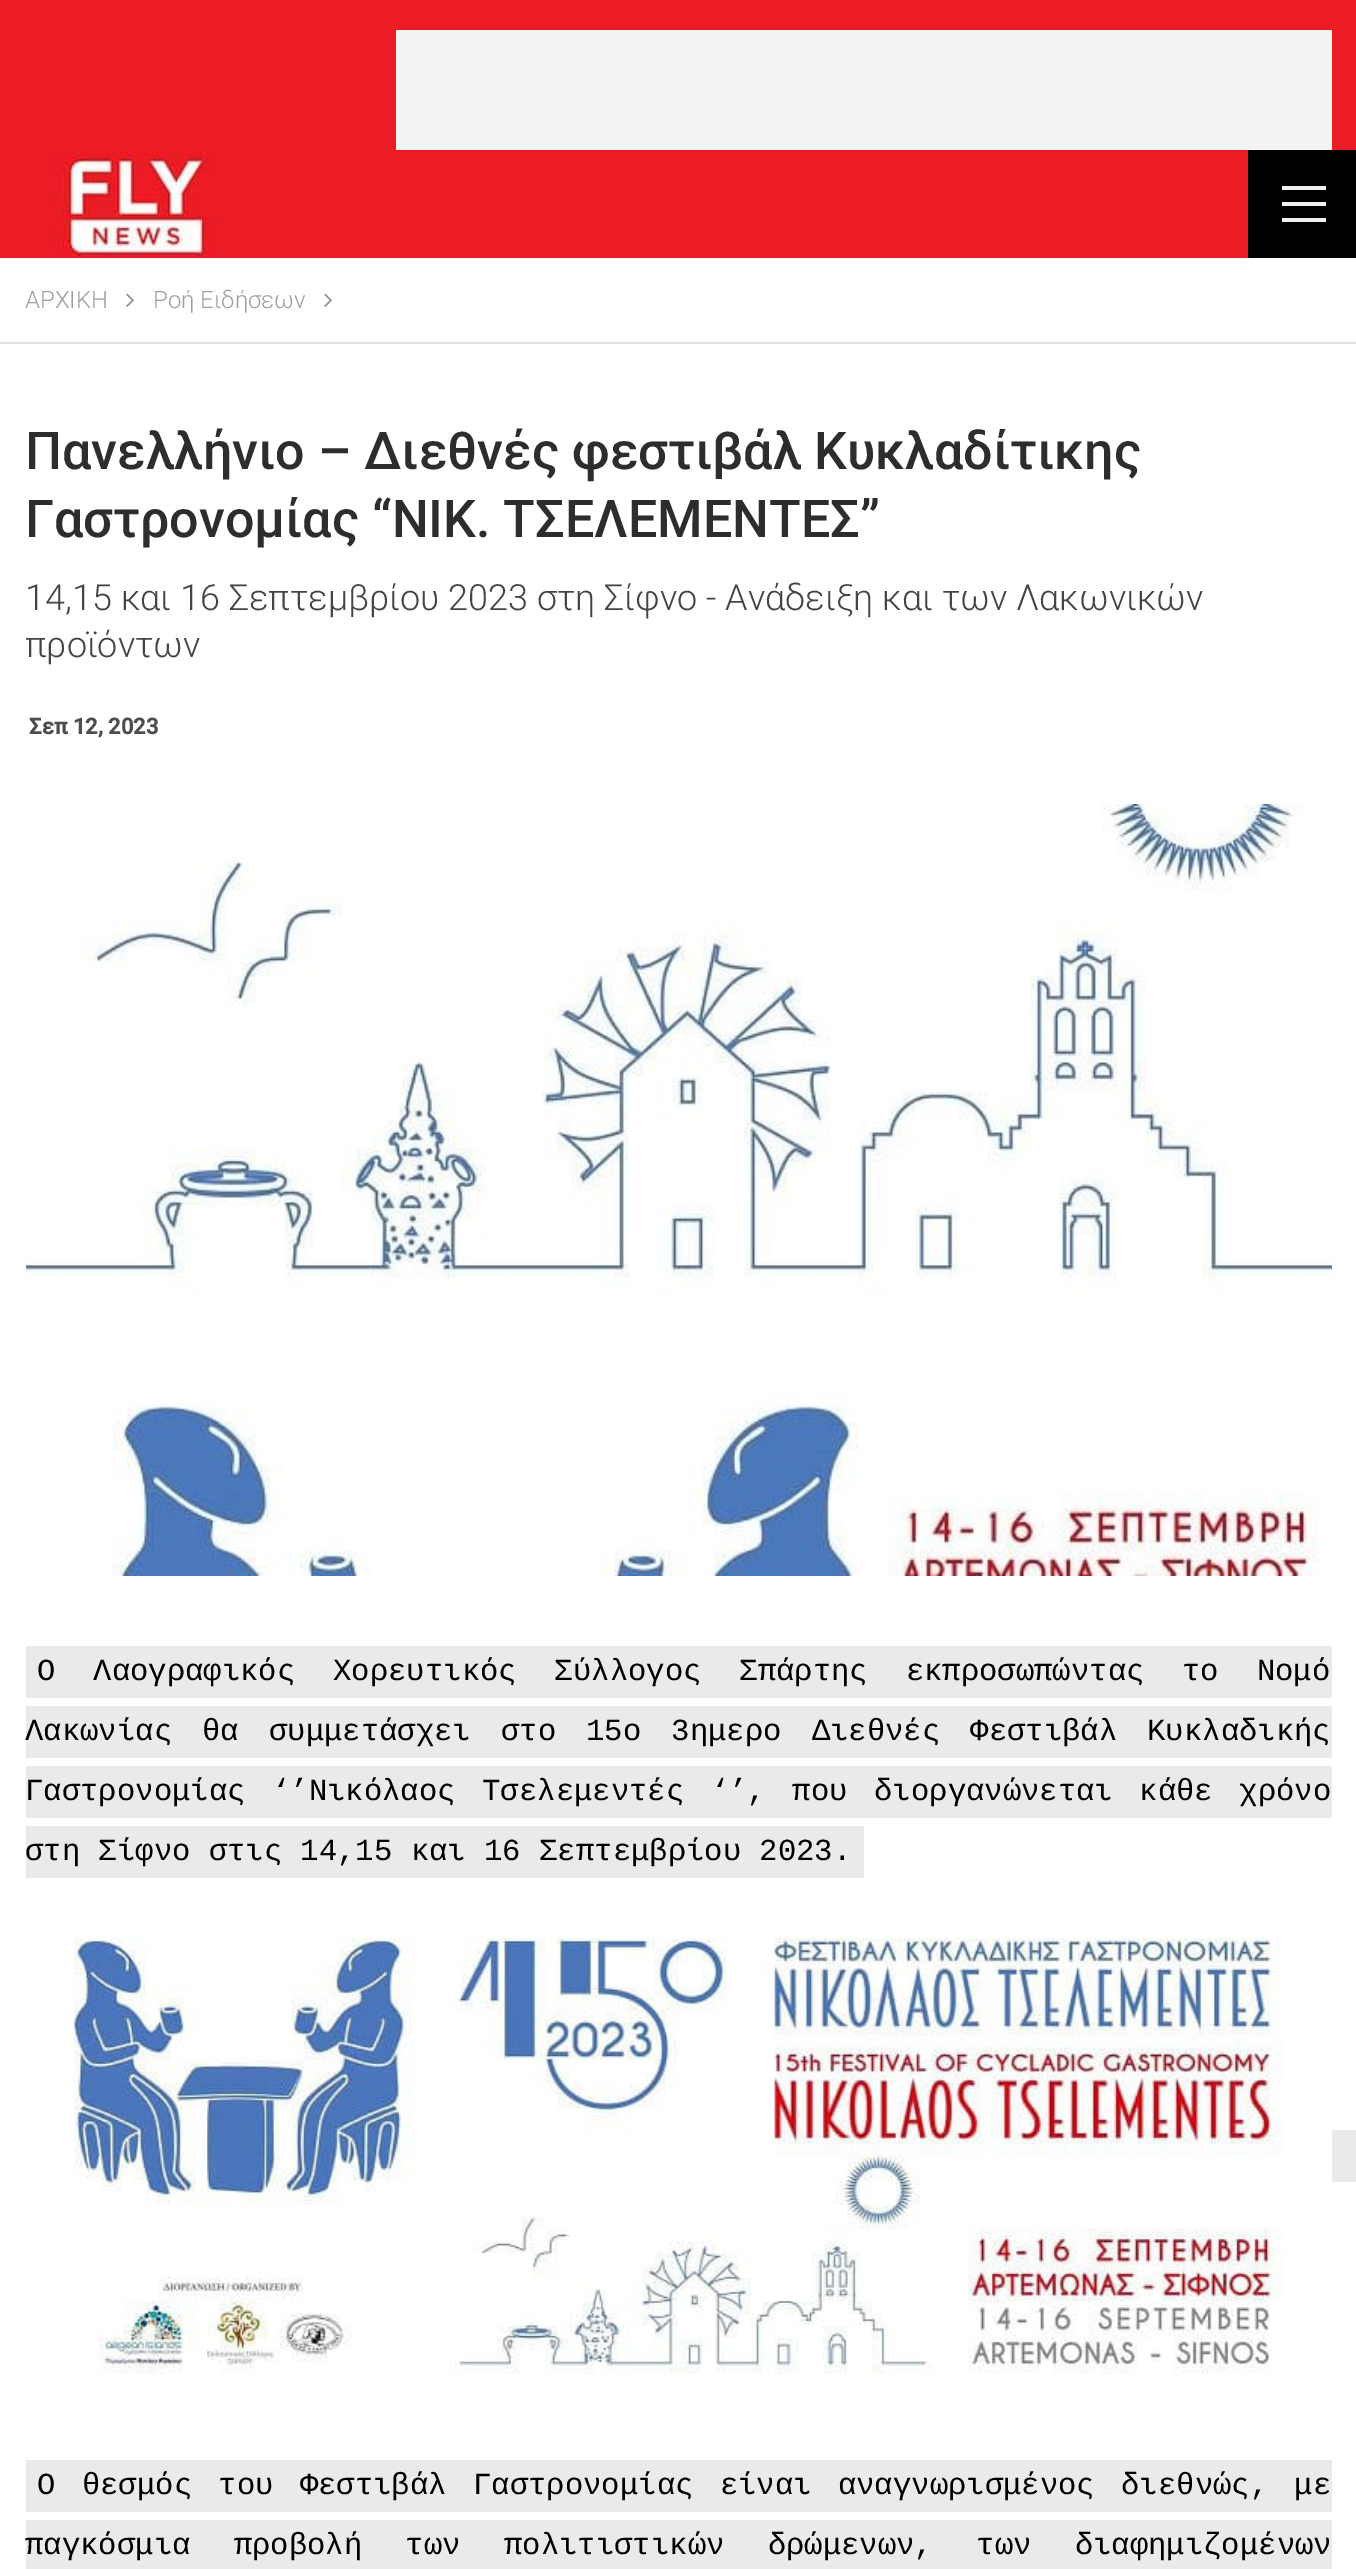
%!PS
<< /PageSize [1356 2569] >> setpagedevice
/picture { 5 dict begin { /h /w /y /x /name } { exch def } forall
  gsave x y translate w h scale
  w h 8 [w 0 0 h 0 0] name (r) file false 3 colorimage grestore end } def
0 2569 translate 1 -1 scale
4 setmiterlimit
0.922 0.11 0.141 setrgbcolor
0 0 1356 2569 rectfill
0.953 setgray
396 30 936 120 rectfill
(img1.rgb) 51 152 168 104 picture
0 setgray
1248 150 108 108 rectfill
0.925 0.941 0.945 setrgbcolor
1282 202 44 4 rectfill
1282 186 44 4 rectfill
1282 218 44 4 rectfill
1 setgray
0 258 1356 2311 rectfill
0.886 setgray
0 342 1356 2 rectfill
/Roboto-Light [24 0 0 -24 0 0] selectfont
0.62 setgray
25 308 moveto (ΑΡΧΙΚΗ) show
(img2.rgb) 126 293 8 14 picture
153 308 moveto (Ροή Ειδήσεων) show
(img2.rgb) 324 293 8 14 picture
/Roboto-Medium [52 0 0 -52 0 0] selectfont
0.176 setgray
25 469 moveto (Πανελλήνιο – Διεθνές φεστιβάλ Κυκλαδίτικης) show
25 537 moveto (Γαστρονομίας “ΝΙΚ. ΤΣΕΛΕΜΕΝΤΕΣ”) show
/Roboto-Light [36 0 0 -36 0 0] selectfont
0.267 setgray
25 610 moveto (14,15 και 16 Σεπτεμβρίου 2023 στη Σίφνο - Ανάδειξη και των Λακωνικών) show
25 657 moveto (προϊόντων) show
/Roboto-Bold [22 0 0 -22 0 0] selectfont
0.302 setgray
29 734 moveto (Σεπ 12, 2023) show
(img3.rgb) 26 804 1306 772 picture
0.918 setgray
26 1646 1306 52 rectfill
/LiberationMono-Regular [30.6 0 0 -30.6 0 0] selectfont
0 setgray
37 1680 moveto 19.5 0 32 (Ο Λαογραφικός Χορευτικός Σύλλογος Σπάρτης εκπροσωπώντας το Νομό) widthshow
0.918 setgray
26 1706 1306 52 rectfill
0 setgray
25 1740 moveto 11.75 0 32 (Λακωνίας θα συμμετάσχει στο 15ο 3ημερο Διεθνές Φεστιβάλ Κυκλαδικής) widthshow
0.918 setgray
26 1766 1306 52 rectfill
0 setgray
25 1800 moveto 8.25 0 32 (Γαστρονομίας ‘’Νικόλαος Τσελεμεντές ‘’, που διοργανώνεται κάθε χρόνο) widthshow
0.918 setgray
26 1826 838 52 rectfill
0 setgray
25 1860 moveto (στη Σίφνο στις 14,15 και 16 Σεπτεμβρίου 2023.) show
(img4.rgb) 73 1937 1210 437 picture
0.918 setgray
1332 2130 24 52 rectfill
26 2460 1306 52 rectfill
0 setgray
37 2494 moveto 8 0 32 (Ο θεσμός του Φεστιβάλ Γαστρονομίας είναι αναγνωρισμένος διεθνώς, με) widthshow
0.918 setgray
26 2520 1306 49 rectfill
0 setgray
25 2554 moveto 25 0 32 (παγκόσμια προβολή των πολιτιστικών δρώμενων, των διαφημιζομένων) widthshow
showpage
